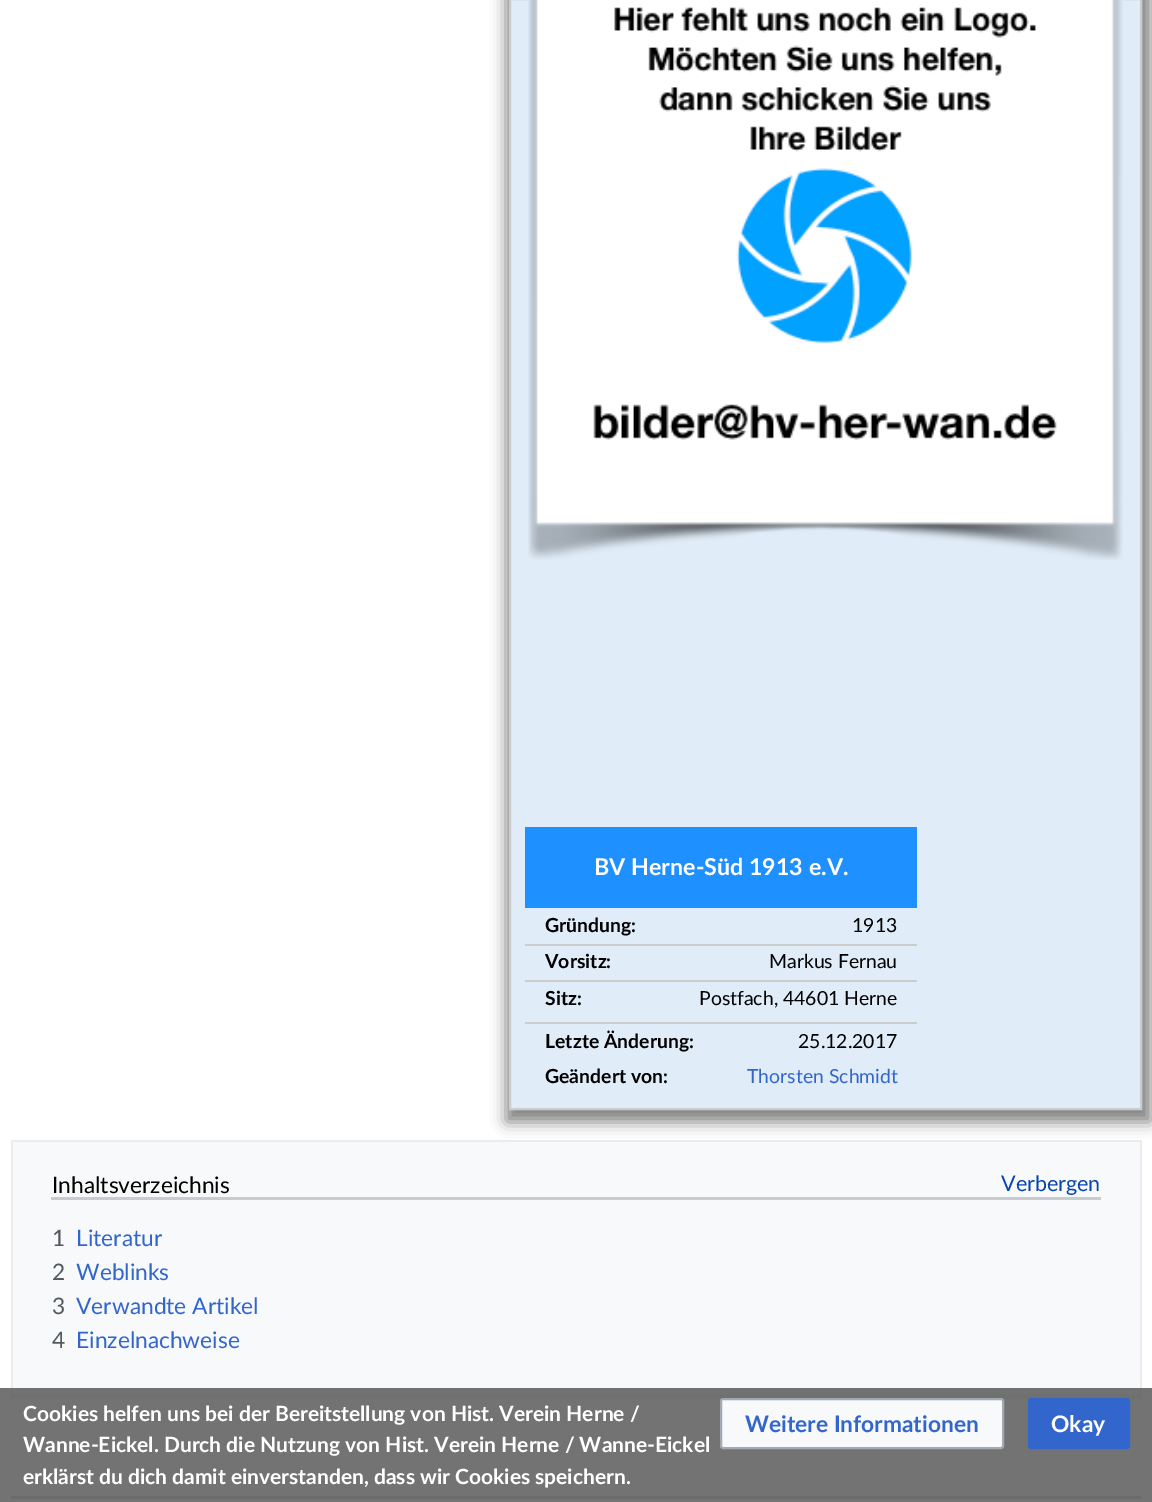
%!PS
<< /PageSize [1152 1502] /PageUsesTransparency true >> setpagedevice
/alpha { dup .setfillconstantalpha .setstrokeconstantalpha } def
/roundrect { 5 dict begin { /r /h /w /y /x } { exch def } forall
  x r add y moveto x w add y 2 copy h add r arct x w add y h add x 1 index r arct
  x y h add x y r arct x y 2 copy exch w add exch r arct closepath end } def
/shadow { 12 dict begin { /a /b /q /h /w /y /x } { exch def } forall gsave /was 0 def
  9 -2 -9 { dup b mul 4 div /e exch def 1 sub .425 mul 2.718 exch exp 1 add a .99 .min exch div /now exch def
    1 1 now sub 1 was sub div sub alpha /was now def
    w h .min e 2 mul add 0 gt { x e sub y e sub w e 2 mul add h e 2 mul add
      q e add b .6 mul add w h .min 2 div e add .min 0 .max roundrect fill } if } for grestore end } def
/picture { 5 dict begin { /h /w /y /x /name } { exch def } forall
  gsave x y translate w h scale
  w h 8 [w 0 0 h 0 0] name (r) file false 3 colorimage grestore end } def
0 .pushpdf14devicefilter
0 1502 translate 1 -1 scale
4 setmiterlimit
1 setgray
0 0 1152 1502 rectfill
0.973 0.976 0.98 setrgbcolor
13 1142 1127 252 rectfill
0.918 0.925 0.941 setrgbcolor
11 1140 1131 2 rectfill
1140 1140 2 258 rectfill
0.502 setgray
506 -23 645 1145 0 7.5 1 shadow
0.878 0.925 0.973 setrgbcolor
newpath 510 -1 moveto 1141 -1 lineto 1141 1109 lineto 510 1109 lineto closepath gsave fill grestore
0.8 setgray
2 setlinewidth
stroke
(img1.rgb) 528 0 595 560 picture
0.118 0.565 1 setrgbcolor
525 827 392 81 rectfill
/Lato-Bold [23.25 0 0 -23.25 0 0] selectfont
1 setgray
594 875 moveto (BV Herne-Süd 1913 e.V.) show
/Lato-Bold [19.4 0 0 -19.4 0 0] selectfont
0 setgray
545 932 moveto (Gründung:) show
/Lato-Regular [19.4 0 0 -19.4 0 0] selectfont
852 932 moveto (1913) show
0.8 setgray
525 944 392 2 rectfill
/Lato-Bold [19.4 0 0 -19.4 0 0] selectfont
0 setgray
545 968 moveto (Vorsitz:) show
/Lato-Regular [19.4 0 0 -19.4 0 0] selectfont
769 968 moveto (Markus Fernau) show
0.8 setgray
525 980 392 2 rectfill
/Lato-Bold [19.4 0 0 -19.4 0 0] selectfont
0 setgray
545 1005 moveto (Sitz:) show
/Lato-Regular [19.4 0 0 -19.4 0 0] selectfont
699 1005 moveto (Postfach, 44601 Herne) show
0.8 setgray
525 1022 392 2 rectfill
/Lato-Bold [19.4 0 0 -19.4 0 0] selectfont
0 setgray
545 1048 moveto (Letzte Änderung:) show
/Lato-Regular [19.4 0 0 -19.4 0 0] selectfont
798 1048 moveto (25.12.2017) show
/Lato-Bold [19.4 0 0 -19.4 0 0] selectfont
545 1083 moveto (Geändert von:) show
/Lato-Regular [19.4 0 0 -19.4 0 0] selectfont
0.2 0.4 0.8 setrgbcolor
747 1083 moveto (Thorsten Schmidt) show
0.918 0.925 0.941 setrgbcolor
11 1394 1131 5 rectfill
11 1140 2 258 rectfill
0.784 0.8 0.82 setrgbcolor
51 1197 1050 3 rectfill
/Lato-Regular [22.75 0 0 -22.75 0 0] selectfont
0 setgray
52 1193 moveto (Inhaltsverzeichnis) show
/Lato-Regular [21.5 0 0 -21.5 0 0] selectfont
0.024 0.271 0.678 setrgbcolor
1001 1191 moveto (Verbergen) show
/Lato-Regular [22.75 0 0 -22.75 0 0] selectfont
0.329 0.349 0.365 setrgbcolor
52 1246 moveto (1) show
0.2 0.4 0.8 setrgbcolor
76 1246 moveto (Literatur) show
0.329 0.349 0.365 setrgbcolor
52 1280 moveto (2) show
0.2 0.4 0.8 setrgbcolor
76 1280 moveto (Weblinks) show
0.329 0.349 0.365 setrgbcolor
52 1314 moveto (3) show
0.2 0.4 0.8 setrgbcolor
76 1314 moveto (Verwandte Artikel) show
0.329 0.349 0.365 setrgbcolor
52 1348 moveto (4) show
0.2 0.4 0.8 setrgbcolor
76 1348 moveto (Einzelnachweise) show
0.784 0.8 0.82 setrgbcolor
11 1496 1131 3 rectfill
0.85 alpha
0.353 setgray
0 1388 1152 114 rectfill
/Lato-Bold [21 0 0 -21 0 0] selectfont
1 alpha
1 setgray
23 1421 moveto (Cookies helfen uns bei der Bereitstellung von Hist. Verein Herne /) show
23 1452 moveto (Wanne-Eickel. Durch die Nutzung von Hist. Verein Herne / Wanne-Eickel) show
23 1484 moveto (erklärst du dich damit einverstanden, dass wir Cookies speichern.) show
0.973 0.976 0.98 setrgbcolor
721 1399 282 49 2 roundrect gsave fill grestore
0.635 0.663 0.694 setrgbcolor
stroke
/Lato-Bold [22.75 0 0 -22.75 0 0] selectfont
0.2 0.4 0.8 setrgbcolor
745 1432 moveto (Weitere Informationen) show
1029 1399 100 49 2 roundrect gsave fill grestore
stroke
1 setgray
1051 1432 moveto (Okay) show
.poppdf14devicefilter showpage
